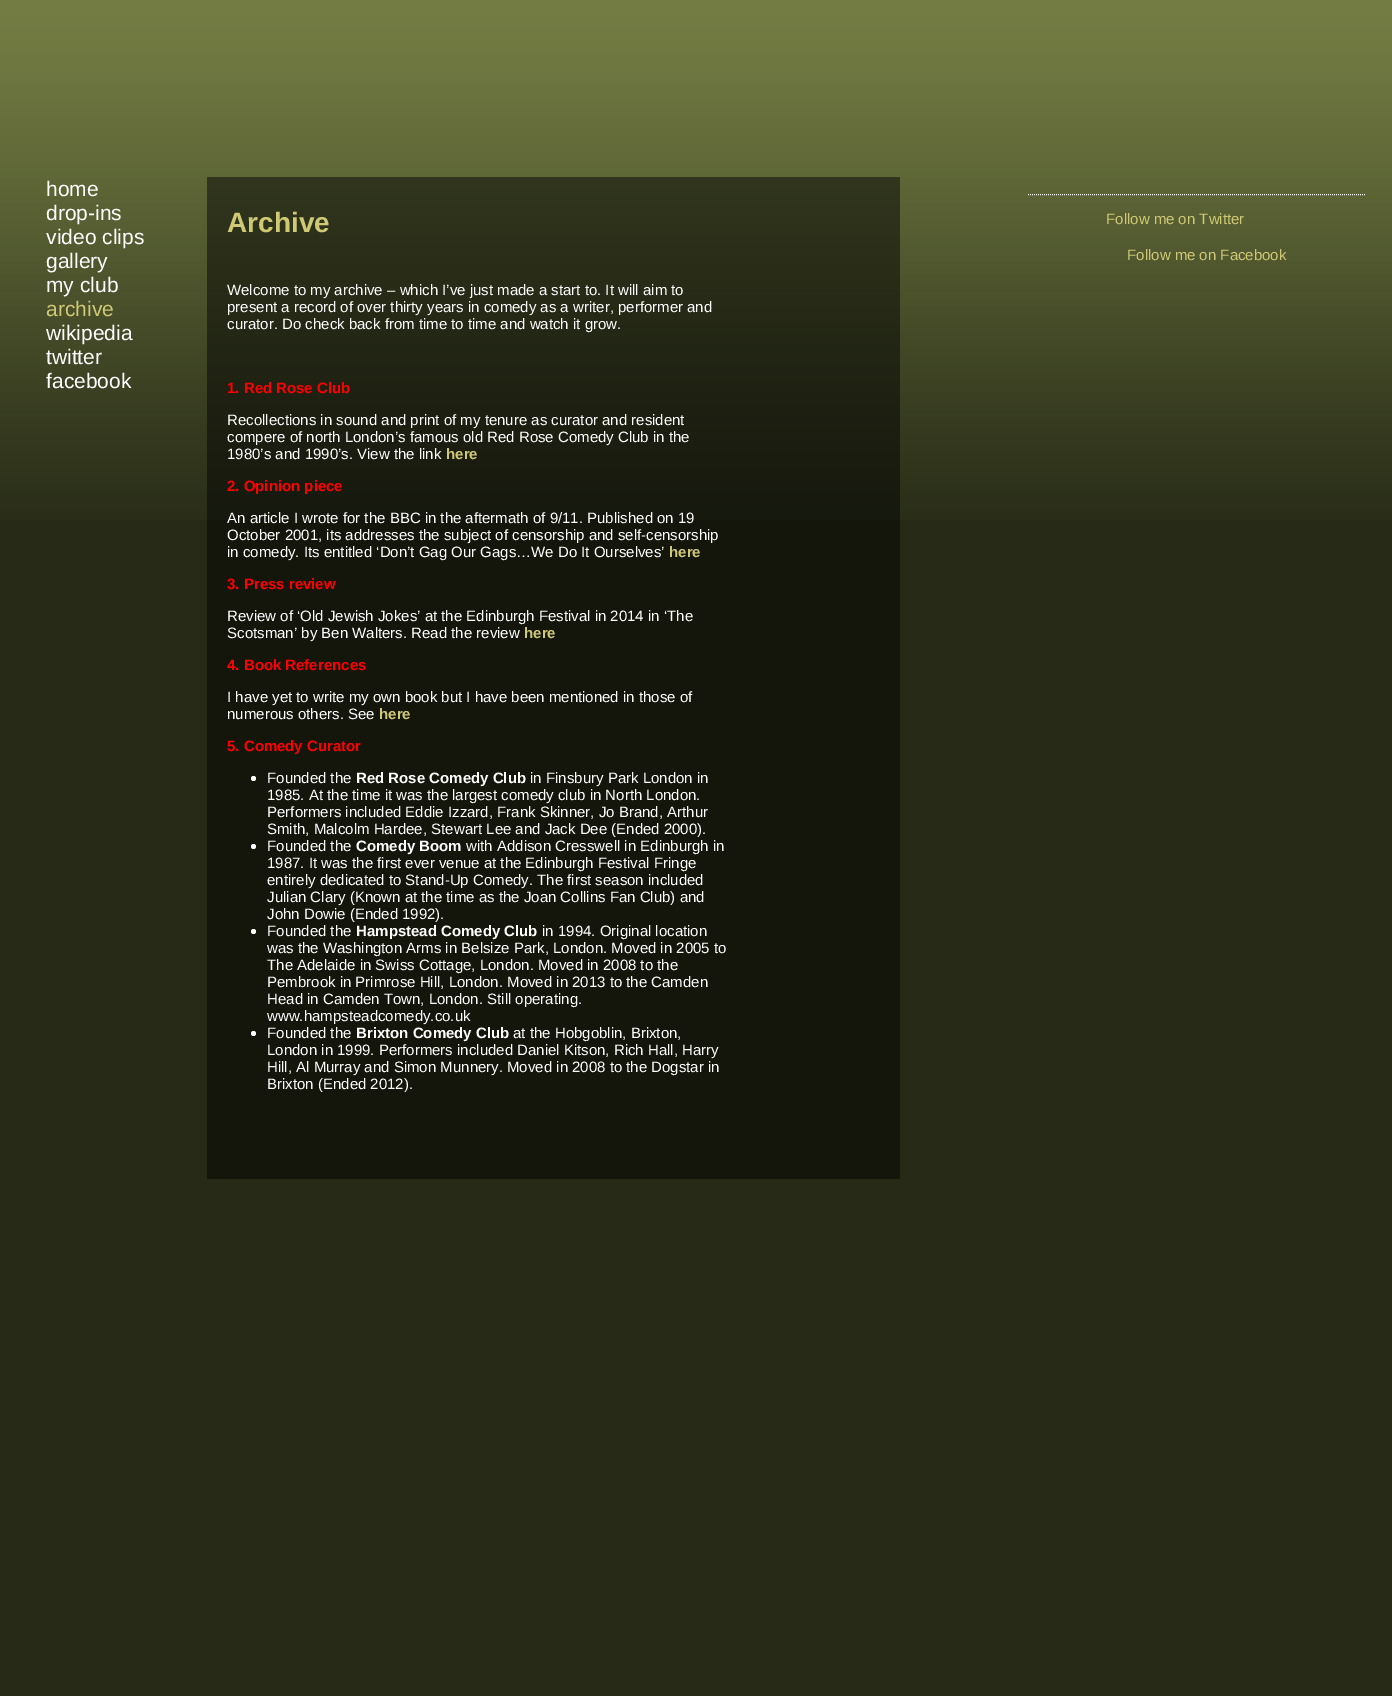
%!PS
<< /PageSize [1392 1696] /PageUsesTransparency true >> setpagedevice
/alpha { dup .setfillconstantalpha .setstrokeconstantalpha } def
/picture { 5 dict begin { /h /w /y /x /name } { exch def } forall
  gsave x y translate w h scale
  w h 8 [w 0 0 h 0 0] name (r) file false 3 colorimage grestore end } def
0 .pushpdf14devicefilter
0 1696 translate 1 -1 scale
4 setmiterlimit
0.149 0.165 0.086 setrgbcolor
0 0 1392 1696 rectfill
(img1.rgb) 0 0 1392 520 picture
/LiberationSans-Regular [21 0 0 -21 0 0] selectfont
1 setgray
46 196 moveto (home) show
46 220 moveto (drop-ins) show
46 244 moveto (video clips) show
46 268 moveto (gallery) show
46 292 moveto (my club) show
0.812 0.788 0.459 setrgbcolor
46 316 moveto (archive) show
1 setgray
46 340 moveto (wikipedia) show
46 364 moveto (twitter) show
46 388 moveto (facebook) show
0.48 alpha
0 setgray
207 177 693 1002 rectfill
/LiberationSans-Bold [28 0 0 -28 0 0] selectfont
1 alpha
0.812 0.788 0.459 setrgbcolor
227 232 moveto (Archive) show
/LiberationSans-Regular [15 0 0 -15 0 0] selectfont
1 setgray
227 295 moveto (Welcome to my archive – which I’ve just made a start to. It will aim to) show
227 312 moveto (present a record of over thirty years in comedy as a writer, performer and) show
227 329 moveto (curator. Do check back from time to time and watch it grow.) show
/LiberationSans-Bold [15 0 0 -15 0 0] selectfont
1 0 0 setrgbcolor
227 393 moveto (1. Red Rose Club) show
/LiberationSans-Regular [15 0 0 -15 0 0] selectfont
1 setgray
227 425 moveto (Recollections in sound and print of my tenure as curator and resident) show
227 442 moveto (compere of north London’s famous old Red Rose Comedy Club in the) show
227 459 moveto (1980’s and 1990’s. View the link) show
/LiberationSans-Bold [15 0 0 -15 0 0] selectfont
0.812 0.788 0.459 setrgbcolor
446 459 moveto (here) show
1 0 0 setrgbcolor
227 491 moveto (2. Opinion piece) show
/LiberationSans-Regular [15 0 0 -15 0 0] selectfont
1 setgray
227 523 moveto (An article I wrote for the BBC in the aftermath of 9/11. Published on 19) show
227 540 moveto (October 2001, its addresses the subject of censorship and self-censorship) show
227 557 moveto (in comedy. Its entitled ‘Don’t Gag Our Gags…We Do It Ourselves’) show
/LiberationSans-Bold [15 0 0 -15 0 0] selectfont
0.812 0.788 0.459 setrgbcolor
669 557 moveto (here) show
1 0 0 setrgbcolor
227 589 moveto (3. Press review) show
/LiberationSans-Regular [15 0 0 -15 0 0] selectfont
1 setgray
227 621 moveto (Review of ‘Old Jewish Jokes’ at the Edinburgh Festival in 2014 in ‘The) show
227 638 moveto (Scotsman’ by Ben Walters. Read the review) show
/LiberationSans-Bold [15 0 0 -15 0 0] selectfont
0.812 0.788 0.459 setrgbcolor
524 638 moveto (here) show
1 0 0 setrgbcolor
227 670 moveto (4. Book References) show
/LiberationSans-Regular [15 0 0 -15 0 0] selectfont
1 setgray
227 702 moveto (I have yet to write my own book but I have been mentioned in those of) show
227 719 moveto (numerous others. See) show
/LiberationSans-Bold [15 0 0 -15 0 0] selectfont
0.812 0.788 0.459 setrgbcolor
379 719 moveto (here) show
1 0 0 setrgbcolor
227 751 moveto (5. Comedy Curator) show
1 setgray
newpath 253.5 778.5 2.5 0 360 arc closepath fill
/LiberationSans-Regular [15 0 0 -15 0 0] selectfont
267 783 moveto (Founded the) show
/LiberationSans-Bold [15 0 0 -15 0 0] selectfont
356 783 moveto (Red Rose Comedy Club) show
/LiberationSans-Regular [15 0 0 -15 0 0] selectfont
530 783 moveto (in Finsbury Park London in) show
267 800 moveto (1985. At the time it was the largest comedy club in North London.) show
267 817 moveto (Performers included Eddie Izzard, Frank Skinner, Jo Brand, Arthur) show
267 834 moveto (Smith, Malcolm Hardee, Stewart Lee and Jack Dee \(Ended 2000\).) show
newpath 253.5 846.5 2.5 0 360 arc closepath fill
267 851 moveto (Founded the) show
/LiberationSans-Bold [15 0 0 -15 0 0] selectfont
356 851 moveto (Comedy Boom) show
/LiberationSans-Regular [15 0 0 -15 0 0] selectfont
466 851 moveto (with Addison Cresswell in Edinburgh in) show
267 868 moveto (1987. It was the first ever venue at the Edinburgh Festival Fringe) show
267 885 moveto (entirely dedicated to Stand-Up Comedy. The first season included) show
267 902 moveto (Julian Clary \(Known at the time as the Joan Collins Fan Club\) and) show
267 919 moveto (John Dowie \(Ended 1992\).) show
newpath 253.5 931.5 2.5 0 360 arc closepath fill
267 936 moveto (Founded the) show
/LiberationSans-Bold [15 0 0 -15 0 0] selectfont
356 936 moveto (Hampstead Comedy Club) show
/LiberationSans-Regular [15 0 0 -15 0 0] selectfont
542 936 moveto (in 1994. Original location) show
267 953 moveto (was the Washington Arms in Belsize Park, London. Moved in 2005 to) show
267 970 moveto (The Adelaide in Swiss Cottage, London. Moved in 2008 to the) show
267 987 moveto (Pembrook in Primrose Hill, London. Moved in 2013 to the Camden) show
267 1004 moveto (Head in Camden Town, London. Still operating.) show
267 1021 moveto (www.hampsteadcomedy.co.uk) show
newpath 253.5 1033.5 2.5 0 360 arc closepath fill
267 1038 moveto (Founded the) show
/LiberationSans-Bold [15 0 0 -15 0 0] selectfont
356 1038 moveto (Brixton Comedy Club) show
/LiberationSans-Regular [15 0 0 -15 0 0] selectfont
513 1038 moveto (at the Hobgoblin, Brixton,) show
267 1055 moveto (London in 1999. Performers included Daniel Kitson, Rich Hall, Harry) show
267 1072 moveto (Hill, Al Murray and Simon Munnery. Moved in 2008 to the Dogstar in) show
267 1089 moveto (Brixton \(Ended 2012\).) show
[1 1] 0 setdash
newpath 1028 194.5 moveto 1365 194.5 lineto stroke
0.812 0.788 0.459 setrgbcolor
1106 224 moveto (Follow me on Twitter) show
1127 260 moveto (Follow me on Facebook) show
.poppdf14devicefilter showpage
